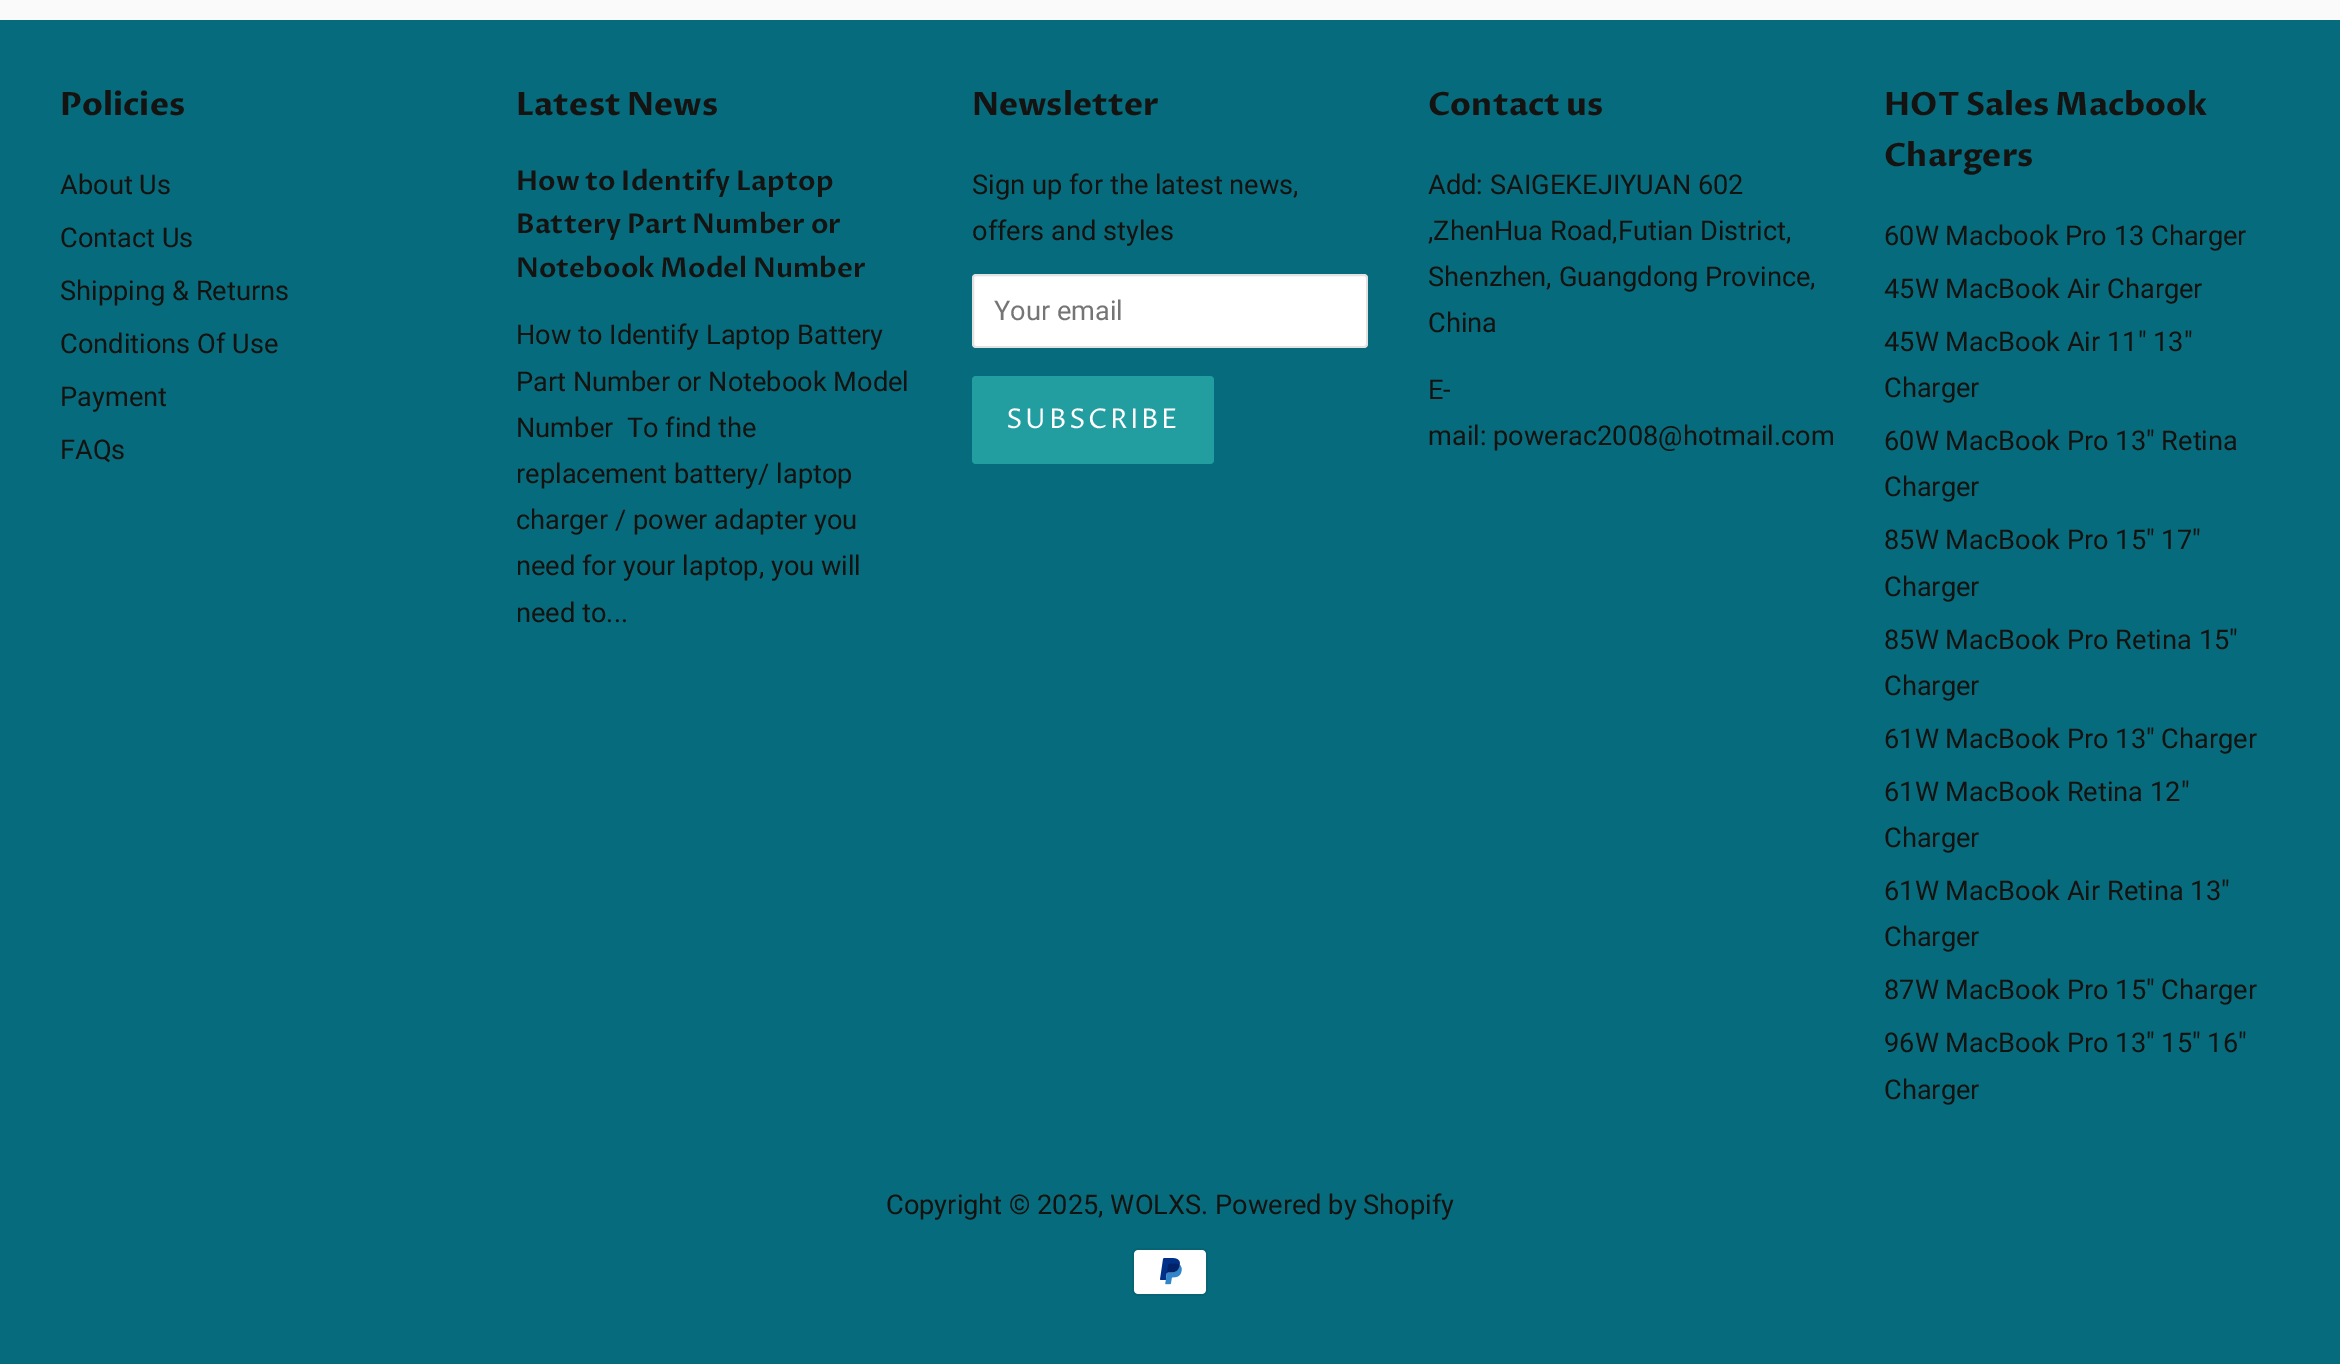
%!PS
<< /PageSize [2340 1364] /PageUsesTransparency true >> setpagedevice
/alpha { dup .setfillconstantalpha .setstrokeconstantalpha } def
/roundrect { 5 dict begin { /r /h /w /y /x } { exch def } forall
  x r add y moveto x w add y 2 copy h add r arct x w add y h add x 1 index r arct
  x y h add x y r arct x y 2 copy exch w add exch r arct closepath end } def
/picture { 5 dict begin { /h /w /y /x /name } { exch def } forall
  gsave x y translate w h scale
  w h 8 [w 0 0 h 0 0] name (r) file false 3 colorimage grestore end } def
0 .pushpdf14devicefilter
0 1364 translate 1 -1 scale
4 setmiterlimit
0.98 setgray
0 0 2340 1364 rectfill
0.024 0.424 0.49 setrgbcolor
0 20 2340 1344 rectfill
/ProzaLibre-Bold [32 0 0 -32 0 0] selectfont
0.082 0.075 0.067 setrgbcolor
60 115 moveto (Policies) show
/Roboto-Regular [27.2 0 0 -27.2 0 0] selectfont
60 194 moveto (About Us) show
60 247 moveto (Contact Us) show
60 300 moveto (Shipping & Returns) show
60 353 moveto (Conditions Of Use) show
60 406 moveto (Payment) show
60 459 moveto (FAQs) show
/ProzaLibre-Bold [32 0 0 -32 0 0] selectfont
516 115 moveto (Latest News) show
/ProzaLibre-SemiBold [27.2 0 0 -27.2 0 0] selectfont
516 190 moveto (How to Identify Laptop) show
516 233 moveto (Battery Part Number or) show
516 277 moveto (Notebook Model Number) show
/Roboto-Regular [27.2 0 0 -27.2 0 0] selectfont
516 344 moveto (How to Identify Laptop Battery) show
516 391 moveto (Part Number or Notebook Model) show
516 437 moveto (Number  To find the) show
516 483 moveto (replacement battery/ laptop) show
516 529 moveto (charger / power adapter you) show
516 575 moveto (need for your laptop, you will) show
516 622 moveto (need to...) show
/ProzaLibre-Bold [32 0 0 -32 0 0] selectfont
972 115 moveto (Newsletter) show
/Roboto-Regular [27.2 0 0 -27.2 0 0] selectfont
972 194 moveto (Sign up for the latest news,) show
972 240 moveto (offers and styles) show
1 setgray
972 274 396 74 4 roundrect fill
0.15 alpha
0.251 0.231 0.216 setrgbcolor
2 setlinewidth
973 275 394 72 3 roundrect stroke
1 alpha
0.459 setgray
994 320 moveto (Your email) show
0.133 0.62 0.631 setrgbcolor
972 376 242 88 4 roundrect fill
/ProzaLibre-Regular [27.2 0 0 -27.2 0 0] selectfont
1 setgray
1006 428 moveto 2.75 0 (SUBSCRIBE) ashow
/ProzaLibre-Bold [32 0 0 -32 0 0] selectfont
0.082 0.075 0.067 setrgbcolor
1428 115 moveto (Contact us) show
/Roboto-Regular [27.2 0 0 -27.2 0 0] selectfont
1428 194 moveto (Add: SAIGEKEJIYUAN 602) show
1428 240 moveto (,ZhenHua Road,Futian District,) show
1428 286 moveto (Shenzhen, Guangdong Province,) show
1428 332 moveto (China) show
1428 399 moveto (E-) show
1428 445 moveto (mail: powerac2008@hotmail.com) show
/ProzaLibre-Bold [32 0 0 -32 0 0] selectfont
1884 115 moveto (HOT Sales Macbook) show
1884 166 moveto (Chargers) show
/Roboto-Regular [27.2 0 0 -27.2 0 0] selectfont
1884 245 moveto (60W Macbook Pro 13 Charger) show
1884 298 moveto (45W MacBook Air Charger) show
1884 351 moveto (45W MacBook Air 11" 13") show
1884 397 moveto (Charger) show
1884 450 moveto (60W MacBook Pro 13" Retina) show
1884 496 moveto (Charger) show
1884 549 moveto (85W MacBook Pro 15" 17") show
1884 596 moveto (Charger) show
1884 649 moveto (85W MacBook Pro Retina 15") show
1884 695 moveto (Charger) show
1884 748 moveto (61W MacBook Pro 13" Charger) show
1884 801 moveto (61W MacBook Retina 12") show
1884 847 moveto (Charger) show
1884 900 moveto (61W MacBook Air Retina 13") show
1884 946 moveto (Charger) show
1884 999 moveto (87W MacBook Pro 15" Charger) show
1884 1052 moveto (96W MacBook Pro 13" 15" 16") show
1884 1099 moveto (Charger) show
886 1214 moveto (Copyright © 2025, WOLXS. Powered by Shopify) show
(img1.rgb) 1132 1248 76 48 picture
.poppdf14devicefilter showpage
